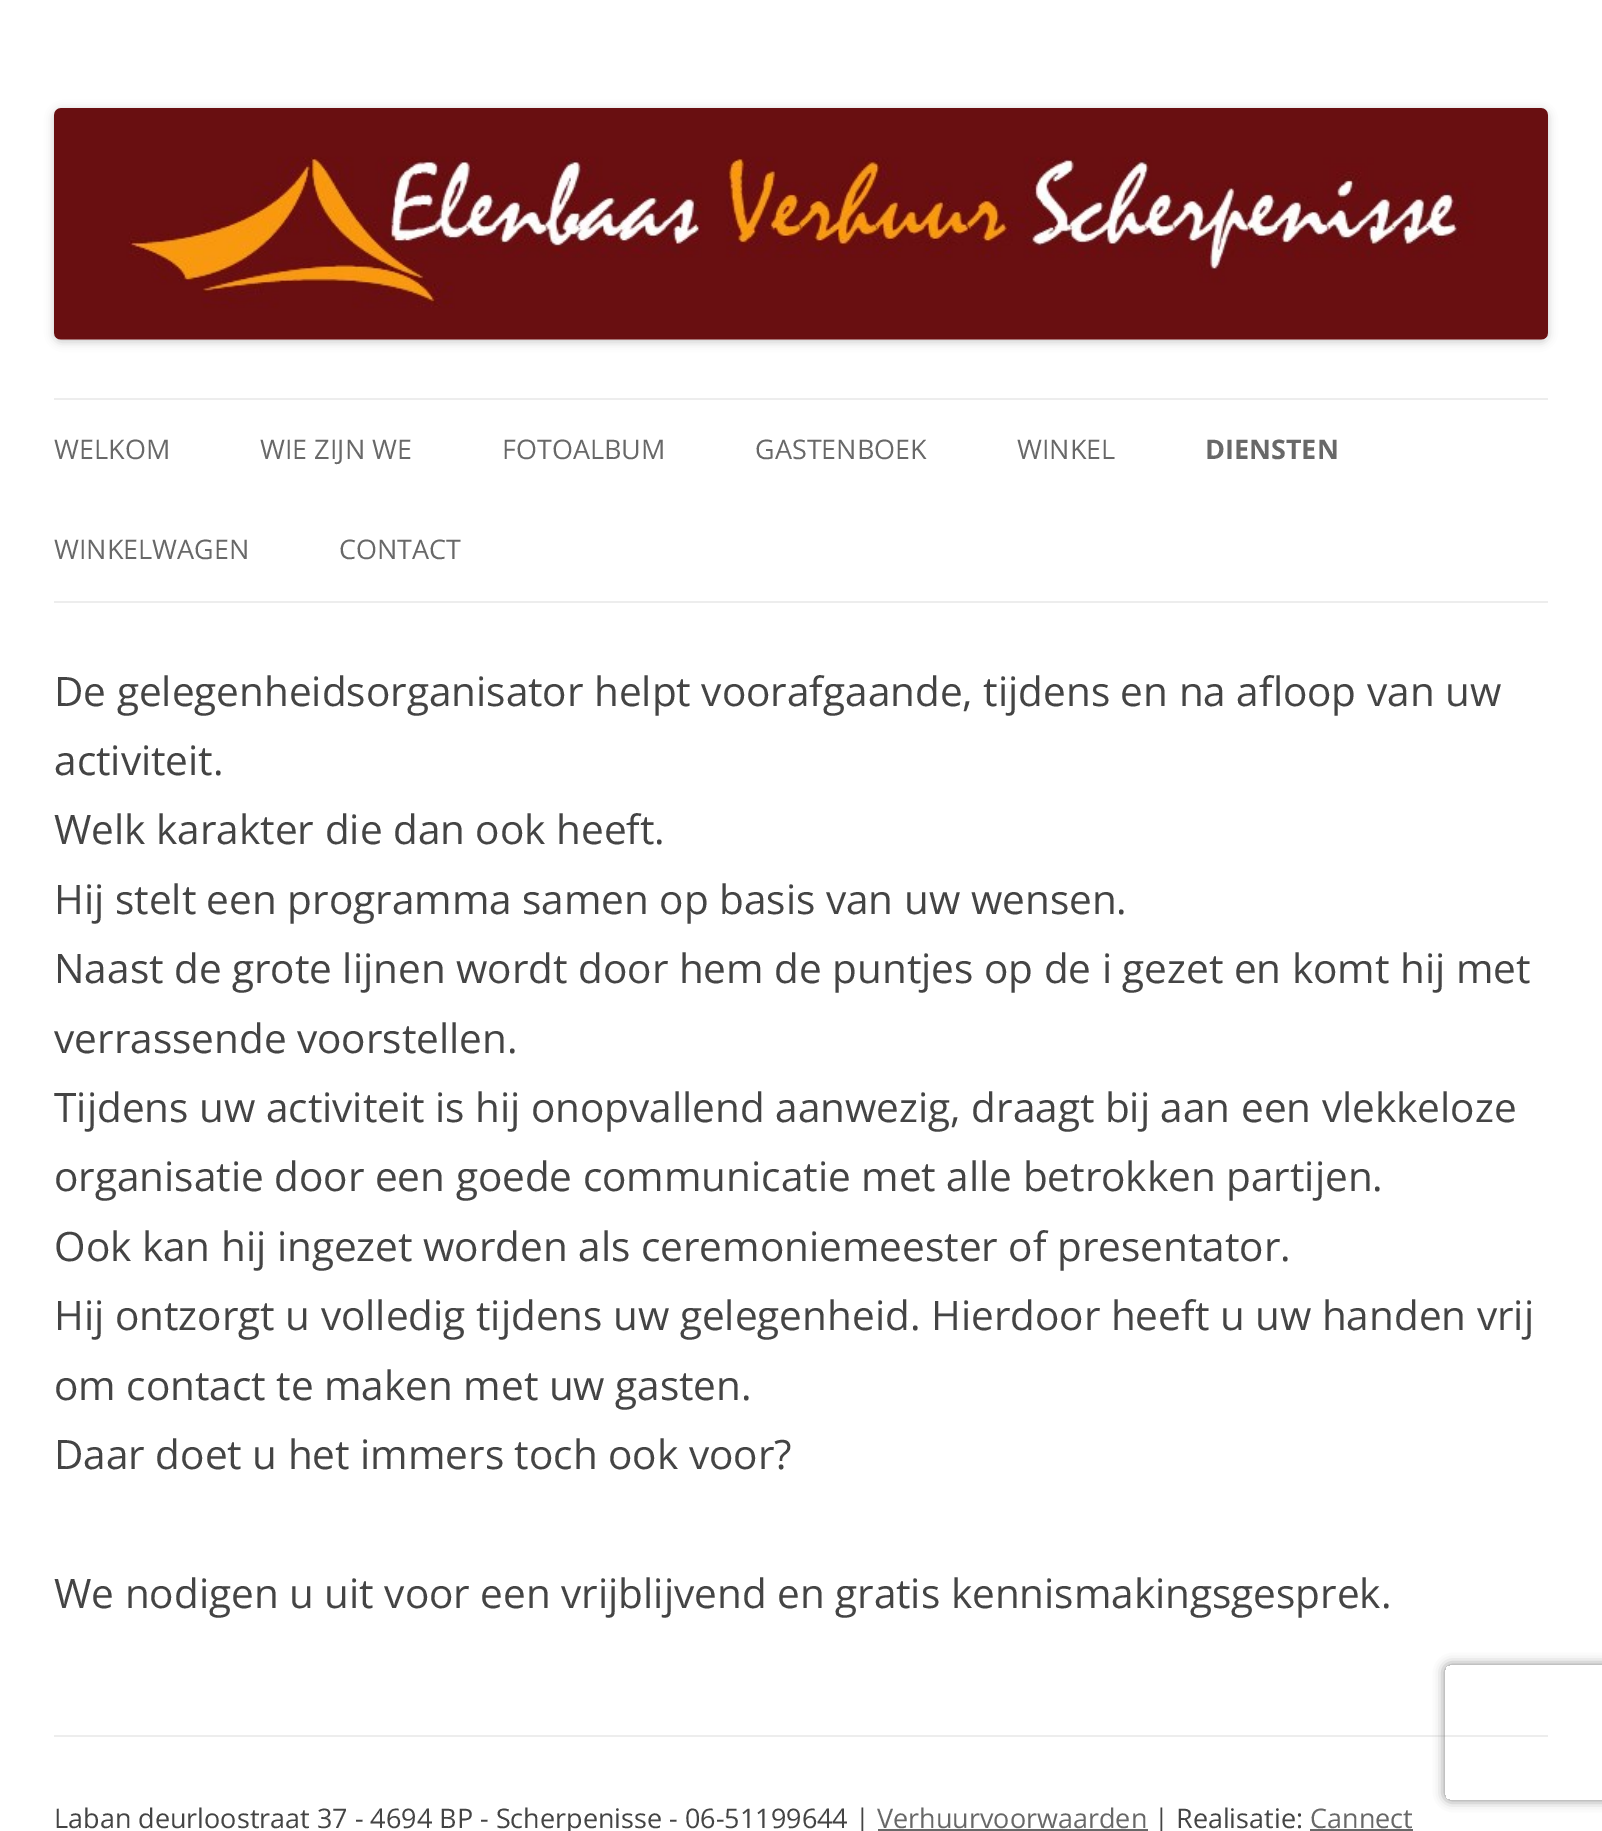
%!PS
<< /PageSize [1602 1831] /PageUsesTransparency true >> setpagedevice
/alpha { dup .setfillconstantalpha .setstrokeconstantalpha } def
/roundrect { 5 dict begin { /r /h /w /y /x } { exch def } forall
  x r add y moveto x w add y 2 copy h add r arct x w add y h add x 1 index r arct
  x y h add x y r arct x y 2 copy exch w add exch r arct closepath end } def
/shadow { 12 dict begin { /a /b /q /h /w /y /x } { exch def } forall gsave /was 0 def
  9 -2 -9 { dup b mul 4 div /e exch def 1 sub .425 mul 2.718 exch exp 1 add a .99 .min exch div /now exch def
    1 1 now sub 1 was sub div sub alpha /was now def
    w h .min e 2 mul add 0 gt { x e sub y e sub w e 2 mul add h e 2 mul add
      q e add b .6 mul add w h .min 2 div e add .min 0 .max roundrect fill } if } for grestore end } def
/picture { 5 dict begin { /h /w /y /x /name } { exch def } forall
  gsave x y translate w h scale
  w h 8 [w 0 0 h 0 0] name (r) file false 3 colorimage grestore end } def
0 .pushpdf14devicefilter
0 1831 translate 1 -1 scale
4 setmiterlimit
1 setgray
0 0 1602 1831 rectfill
0 setgray
54 110 1494 232 7 4.5 0.2 shadow
(img1.rgb) 54 108 1494 232 picture
0.929 setgray
54 398 1494 2 rectfill
54 601 1494 2 rectfill
/OpenSans-Regular [27 0 0 -27 0 0] selectfont
0.408 setgray
54 459 moveto (WELKOM) show
260 459 moveto (WIE ZIJN WE) show
502 459 moveto (FOTOALBUM) show
755 459 moveto (GASTENBOEK) show
1017 459 moveto (WINKEL) show
/OpenSans-Bold [27 0 0 -27 0 0] selectfont
1205 459 moveto (DIENSTEN) show
/OpenSans-Regular [27 0 0 -27 0 0] selectfont
54 559 moveto (WINKELWAGEN) show
339 559 moveto (CONTACT) show
/OpenSans-Regular [40.5 0 0 -40.5 0 0] selectfont
0.267 setgray
54 706 moveto (De gelegenheidsorganisator helpt voorafgaande, tijdens en na afloop van uw) show
54 775 moveto (activiteit.) show
54 844 moveto (Welk karakter die dan ook heeft.) show
54 914 moveto (Hij stelt een programma samen op basis van uw wensen.) show
54 983 moveto (Naast de grote lijnen wordt door hem de puntjes op de i gezet en komt hij met) show
54 1053 moveto (verrassende voorstellen.) show
54 1122 moveto (Tijdens uw activiteit is hij onopvallend aanwezig, draagt bij aan een vlekkeloze) show
54 1191 moveto (organisatie door een goede communicatie met alle betrokken partijen.) show
54 1261 moveto (Ook kan hij ingezet worden als ceremoniemeester of presentator.) show
54 1330 moveto (Hij ontzorgt u volledig tijdens uw gelegenheid. Hierdoor heeft u uw handen vrij) show
54 1400 moveto (om contact te maken met uw gasten.) show
54 1469 moveto (Daar doet u het immers toch ook voor?) show
54 1608 moveto (We nodigen u uit voor een vrijblijvend en gratis kennismakingsgesprek.) show
0.929 setgray
54 1735 1494 2 rectfill
/OpenSans-Regular [27 0 0 -27 0 0] selectfont
0.267 setgray
54 1828 moveto (Laban deurloostraat 37 - 4694 BP - Scherpenisse - 06-51199644 |) show
0.408 setgray
877 1828 moveto (Verhuurvoorwaarden) show
878 1829 270 2 rectfill
0.267 setgray
1154 1828 moveto (| Realisatie:) show
0.408 setgray
1310 1828 moveto (Cannect) show
1310 1829 103 2 rectfill
gsave
newpath 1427 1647 moveto 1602 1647 lineto 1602 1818 lineto 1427 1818 lineto closepath 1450 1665 moveto 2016 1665 lineto 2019 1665 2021 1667 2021 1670 curveto 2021 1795 lineto 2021 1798 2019 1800 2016 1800 curveto 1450 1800 lineto 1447 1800 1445 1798 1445 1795 curveto 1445 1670 lineto 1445 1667 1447 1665 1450 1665 curveto closepath eoclip newpath
0.502 setgray
1445 1665 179 135 5 5.5 1 shadow
grestore
.poppdf14devicefilter showpage
